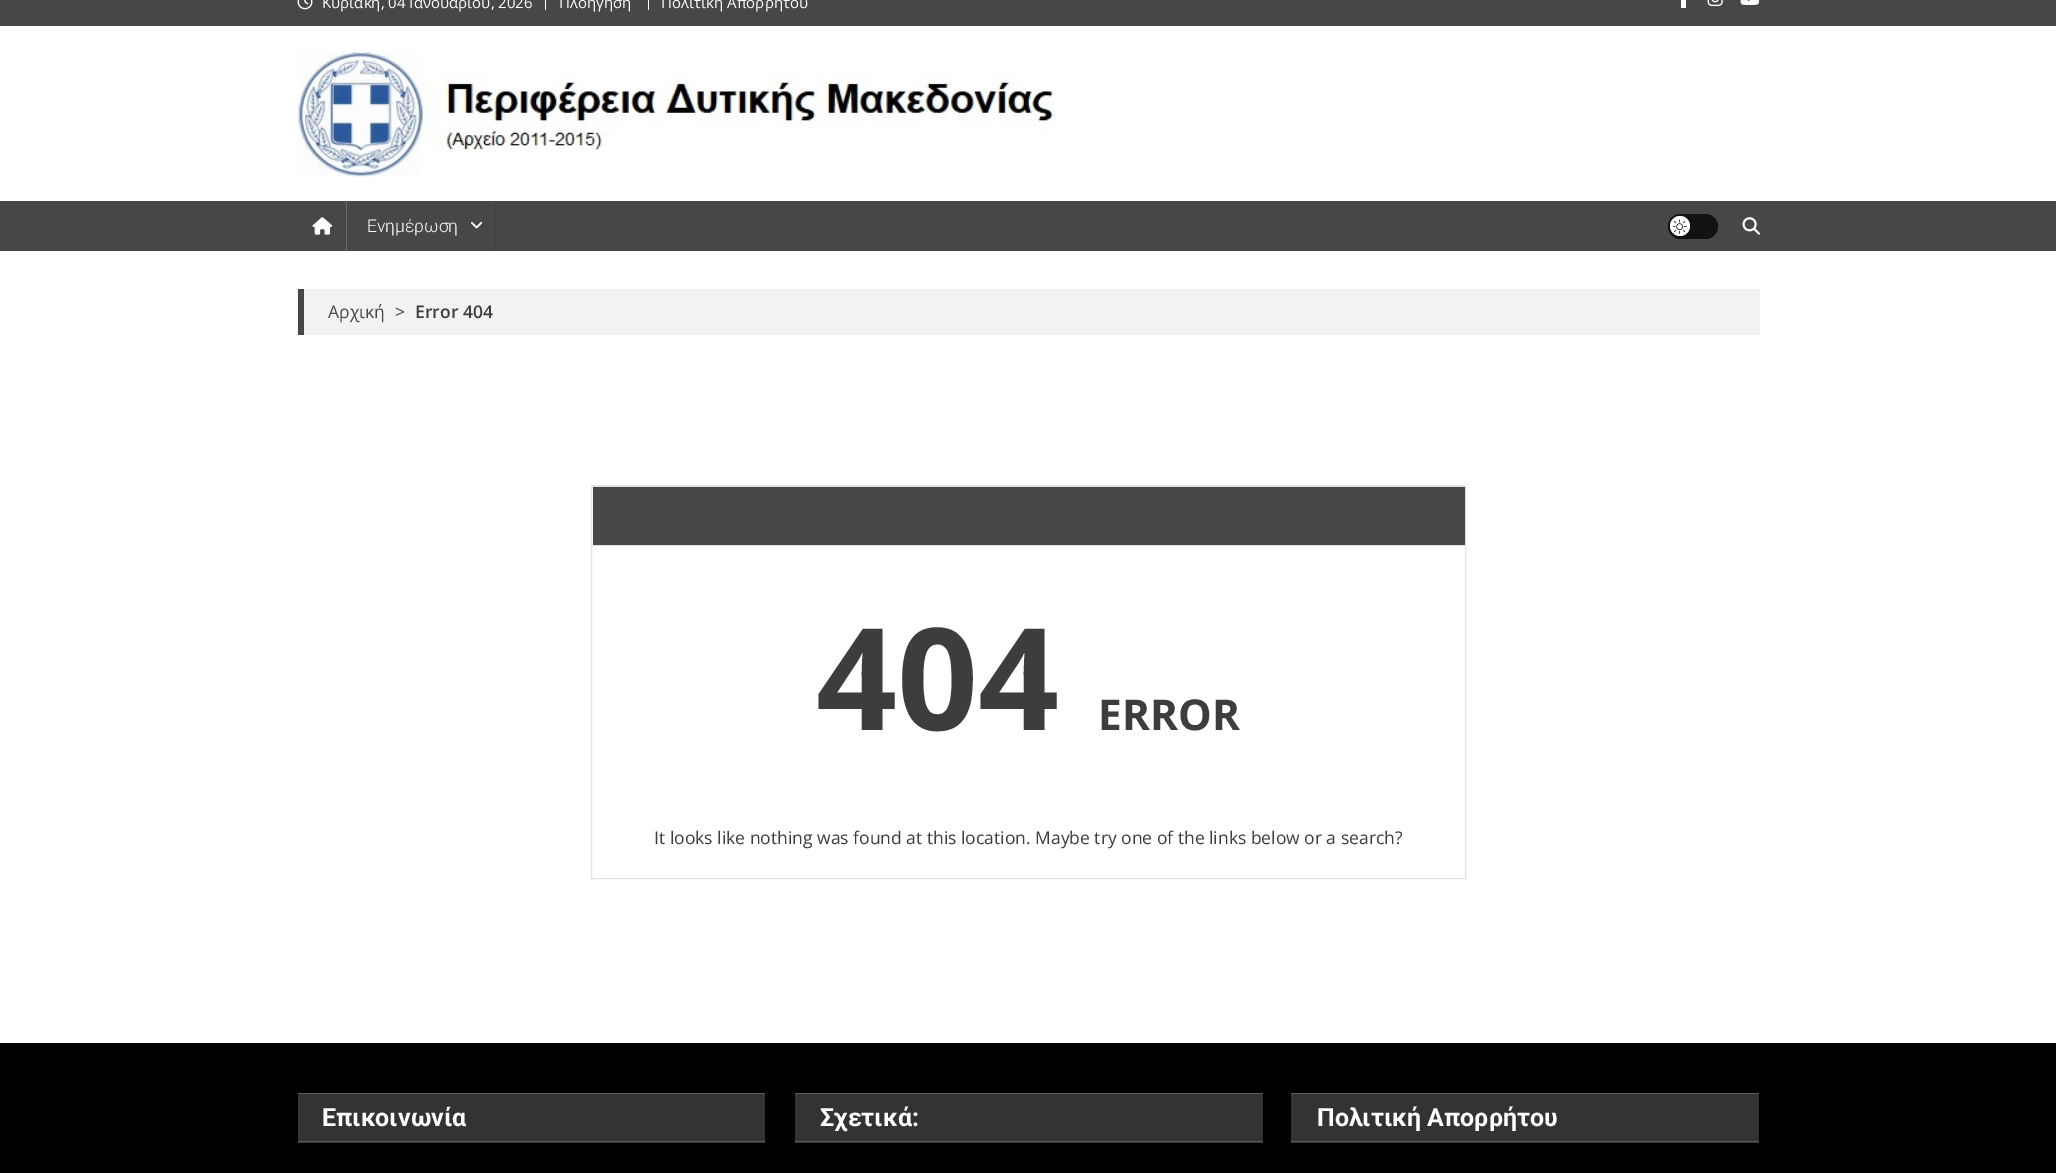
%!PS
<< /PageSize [2056 1173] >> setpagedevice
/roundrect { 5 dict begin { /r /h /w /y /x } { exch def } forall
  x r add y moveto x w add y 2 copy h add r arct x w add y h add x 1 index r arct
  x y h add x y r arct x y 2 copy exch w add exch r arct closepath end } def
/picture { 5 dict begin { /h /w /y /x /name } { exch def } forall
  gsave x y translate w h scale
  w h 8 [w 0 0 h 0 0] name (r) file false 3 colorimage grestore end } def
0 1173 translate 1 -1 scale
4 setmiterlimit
1 setgray
0 0 2056 1173 rectfill
0.278 setgray
0 0 2056 26 rectfill
(img1.rgb) 297 0 16 10 picture
/OpenSans-Regular [15 0 0 -15 0 0] selectfont
1 setgray
322 8 moveto (Κυριακή, 04 Ιανουαρίου, 2026) show
545 0 1 10 rectfill
559 8 moveto (Πλοήγηση) show
648 0 1 10 rectfill
661 8 moveto (Πολιτική Απορρήτου) show
1681 0 5 8 rectfill
(img2.rgb) 1707 0 16 7 picture
(img3.rgb) 1740 0 20 5 picture
(img4.rgb) 297 51 761 126 picture
0.278 setgray
0 201 2056 50 rectfill
(img5.rgb) 312 217 21 18 picture
0.255 setgray
495 201 1 50 rectfill
0.424 setgray
346 201 1 50 rectfill
/Roboto-Light [17.5 0 0 -17.5 0 0] selectfont
1 setgray
367 232 moveto (Ενημέρωση) show
(img6.rgb) 471 221 12 8 picture
0.071 setgray
1668 214 50 25 12.5 roundrect fill
1 setgray
newpath 1680 226 10 0 360 arc closepath fill
(img7.rgb) 1673 219 14 15 picture
(img8.rgb) 1742 217 18 18 picture
0.949 setgray
304 289 1456 46 rectfill
0.278 setgray
298 289 6 46 rectfill
/OpenSans-Regular [17.5 0 0 -17.5 0 0] selectfont
328 318 moveto (Αρχική) show
0.239 setgray
395 318 moveto (>) show
/OpenSans-SemiBold [17.5 0 0 -17.5 0 0] selectfont
415 318 moveto (Error 404) show
0.882 setgray
591.5 485.5 874 393 rectstroke
0.278 setgray
593 487 872 58 rectfill
0.882 setgray
593 486 872 1 rectfill
593 545 872 1 rectfill
/OpenSans-Bold [142 0 0 -142 0 0] selectfont
0.239 setgray
816 730 moveto (404) show
/OpenSans-Bold [42.5 0 0 -42.5 0 0] selectfont
1098 730 moveto (ERROR) show
/OpenSans-Regular [17.5 0 0 -17.5 0 0] selectfont
654 844 moveto (It looks like nothing was found at this location. Maybe try one of the links below or a search?) show
0 setgray
0 1043 2056 130 rectfill
0.2 setgray
298 1094 467 49 rectfill
0.361 setgray
298 1093 467 1 rectfill
298 1141 467 1 rectfill
/Roboto-Bold [25 0 0 -25 0 0] selectfont
1 setgray
322 1126 moveto (Επικοινωνία) show
0.2 setgray
795 1094 468 49 rectfill
0.361 setgray
795 1093 468 1 rectfill
795 1141 468 1 rectfill
1 setgray
820 1126 moveto (Σχετικά:) show
0.2 setgray
1291 1094 468 49 rectfill
0.361 setgray
1291 1093 468 1 rectfill
1291 1141 468 1 rectfill
1 setgray
1317 1126 moveto (Πολιτική Απορρήτου) show
showpage
